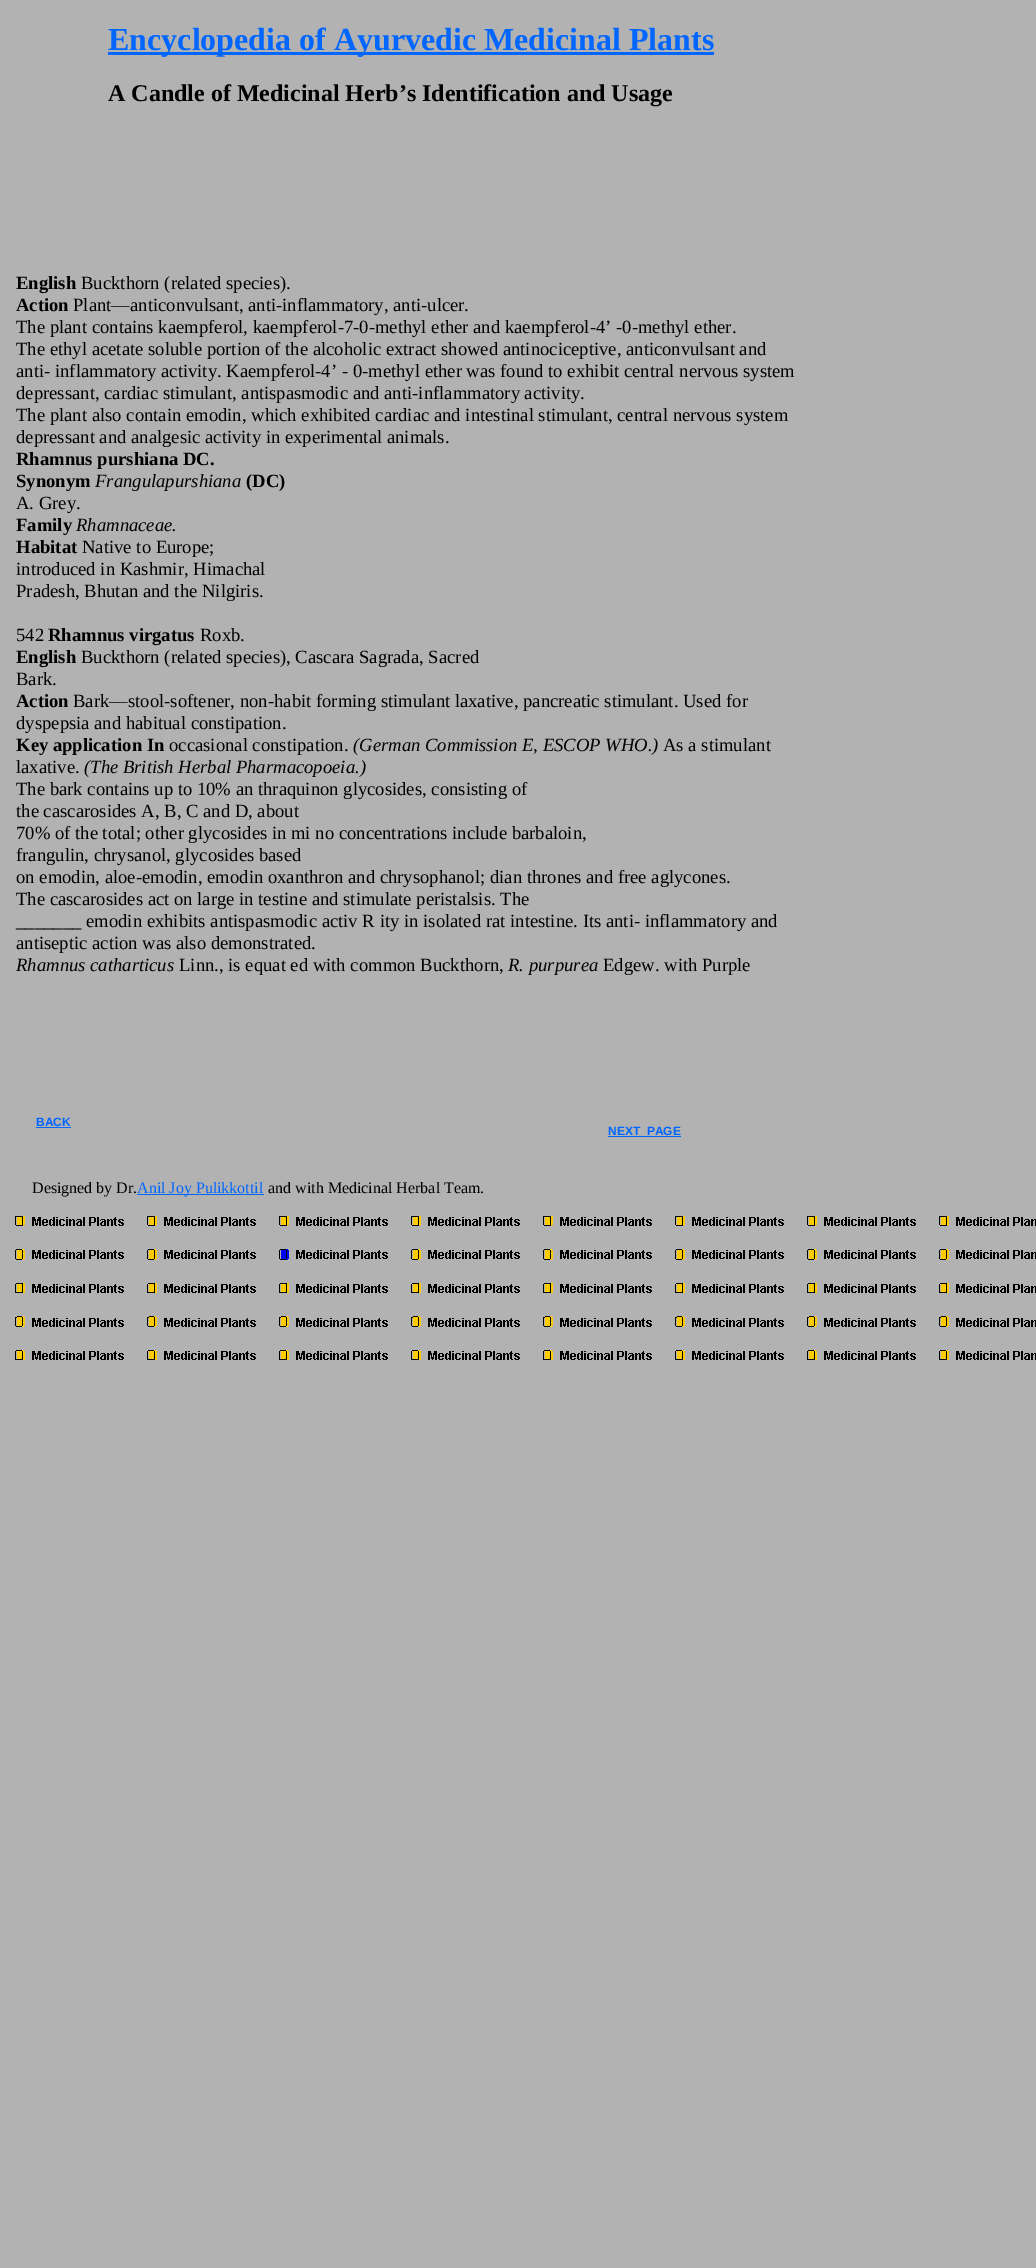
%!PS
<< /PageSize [1036 2268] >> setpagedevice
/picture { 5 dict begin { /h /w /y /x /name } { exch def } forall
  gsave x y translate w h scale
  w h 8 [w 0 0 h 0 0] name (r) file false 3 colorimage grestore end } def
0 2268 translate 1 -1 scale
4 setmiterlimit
0.698 setgray
0 0 1036 2268 rectfill
0 0.4 1 setrgbcolor
108 52 606 3 rectfill
/LiberationSerif-Bold [32 0 0 -32 0 0] selectfont
108 50 moveto (Encyclopedia of Ayurvedic Medicinal Plants) show
/LiberationSerif-Bold [24 0 0 -24 0 0] selectfont
0 setgray
108 101 moveto (A Candle of Medicinal Herb’s Identification and Usage) show
/LiberationSerif-Bold [18.65 0 0 -18.65 0 0] selectfont
16 289 moveto (English) show
/LiberationSerif-Regular [18.65 0 0 -18.65 0 0] selectfont
81 289 moveto (Buckthorn \(related species\).) show
/LiberationSerif-Bold [18.65 0 0 -18.65 0 0] selectfont
16 311 moveto (Action) show
/LiberationSerif-Regular [18.65 0 0 -18.65 0 0] selectfont
73 311 moveto (Plant—anticonvulsant, anti-inflammatory, anti-ulcer.) show
16 333 moveto (The plant contains kaempferol, kaempferol-7-0-methyl ether and kaempferol-4’ -0-methyl ether.) show
16 355 moveto (The ethyl acetate soluble portion of the alcoholic extract showed antinociceptive, anticonvulsant and) show
16 377 moveto (anti- inflammatory activity. Kaempferol-4’ - 0-methyl ether was found to exhibit central nervous system) show
16 399 moveto (depressant, cardiac stimulant, antispasmodic and anti-inflammatory activity.) show
16 421 moveto (The plant also contain emodin, which exhibited cardiac and intestinal stimulant, central nervous system) show
16 443 moveto (depressant and analgesic activity in experimental animals.) show
/LiberationSerif-Bold [18.65 0 0 -18.65 0 0] selectfont
16 465 moveto (Rhamnus purshiana DC.) show
16 487 moveto (Synonym) show
/LiberationSerif-Italic [18.65 0 0 -18.65 0 0] selectfont
95 487 moveto (Frangulapurshiana) show
/LiberationSerif-Bold [18.65 0 0 -18.65 0 0] selectfont
246 487 moveto (\(DC\)) show
/LiberationSerif-Regular [18.65 0 0 -18.65 0 0] selectfont
16 509 moveto (A. Grey.) show
/LiberationSerif-Bold [18.65 0 0 -18.65 0 0] selectfont
16 531 moveto (Family) show
/LiberationSerif-Italic [18.65 0 0 -18.65 0 0] selectfont
76 531 moveto (Rhamnaceae.) show
/LiberationSerif-Bold [18.65 0 0 -18.65 0 0] selectfont
16 553 moveto (Habitat) show
/LiberationSerif-Regular [18.65 0 0 -18.65 0 0] selectfont
82 553 moveto (Native to Europe;) show
16 575 moveto (introduced in Kashmir, Himachal) show
16 597 moveto (Pradesh, Bhutan and the Nilgiris.) show
16 641 moveto (542) show
/LiberationSerif-Bold [18.65 0 0 -18.65 0 0] selectfont
48 641 moveto (Rhamnus virgatus) show
/LiberationSerif-Regular [18.65 0 0 -18.65 0 0] selectfont
200 641 moveto (Roxb.) show
/LiberationSerif-Bold [18.65 0 0 -18.65 0 0] selectfont
16 663 moveto (English) show
/LiberationSerif-Regular [18.65 0 0 -18.65 0 0] selectfont
81 663 moveto (Buckthorn \(related species\), Cascara Sagrada, Sacred) show
16 685 moveto (Bark.) show
/LiberationSerif-Bold [18.65 0 0 -18.65 0 0] selectfont
16 707 moveto (Action) show
/LiberationSerif-Regular [18.65 0 0 -18.65 0 0] selectfont
73 707 moveto (Bark—stool-softener, non-habit forming stimulant laxative, pancreatic stimulant. Used for) show
16 729 moveto (dyspepsia and habitual constipation.) show
/LiberationSerif-Bold [18.65 0 0 -18.65 0 0] selectfont
16 751 moveto (Key application In) show
/LiberationSerif-Regular [18.65 0 0 -18.65 0 0] selectfont
169 751 moveto (occasional constipation.) show
/LiberationSerif-Italic [18.65 0 0 -18.65 0 0] selectfont
353 751 moveto (\(German Commission E, ESCOP WHO.\)) show
/LiberationSerif-Regular [18.65 0 0 -18.65 0 0] selectfont
663 751 moveto (As a stimulant) show
16 773 moveto (laxative.) show
/LiberationSerif-Italic [18.65 0 0 -18.65 0 0] selectfont
84 773 moveto (\(The British Herbal Pharmacopoeia.\)) show
/LiberationSerif-Regular [18.65 0 0 -18.65 0 0] selectfont
16 795 moveto (The bark contains up to 10% an thraquinon glycosides, consisting of) show
16 817 moveto (the cascarosides A, B, C and D, about) show
16 839 moveto (70% of the total; other glycosides in mi no concentrations include barbaloin,) show
16 861 moveto (frangulin, chrysanol, glycosides based) show
16 883 moveto (on emodin, aloe-emodin, emodin oxanthron and chrysophanol; dian thrones and free aglycones.) show
16 905 moveto (The cascarosides act on large in testine and stimulate peristalsis. The) show
16 927 moveto (_______ emodin exhibits antispasmodic activ R ity in isolated rat intestine. Its anti- inflammatory and) show
16 949 moveto (antiseptic action was also demonstrated.) show
/LiberationSerif-Italic [18.65 0 0 -18.65 0 0] selectfont
16 971 moveto (Rhamnus catharticus) show
/LiberationSerif-Regular [18.65 0 0 -18.65 0 0] selectfont
179 971 moveto (Linn., is equat ed with common Buckthorn,) show
/LiberationSerif-Italic [18.65 0 0 -18.65 0 0] selectfont
508 971 moveto (R. purpurea) show
/LiberationSerif-Regular [18.65 0 0 -18.65 0 0] selectfont
603 971 moveto (Edgew. with Purple) show
/LiberationSans-Bold [12 0 0 -12 0 0] selectfont
0 0.4 1 setrgbcolor
36 1126 moveto (BACK) show
36 1127 35 1 rectfill
608 1135 moveto (NEXT  PAGE) show
608 1136 73 1 rectfill
/LiberationSerif-Regular [16 0 0 -16 0 0] selectfont
0 setgray
32 1193 moveto (Designed by Dr.) show
0 0.4 1 setrgbcolor
137 1194 127 1 rectfill
137 1193 moveto (Anil Joy Pulikkottil) show
0 setgray
268 1193 moveto (and with Medicinal Herbal Team.) show
(img1.rgb) 15 1216 1021 144 picture
showpage
